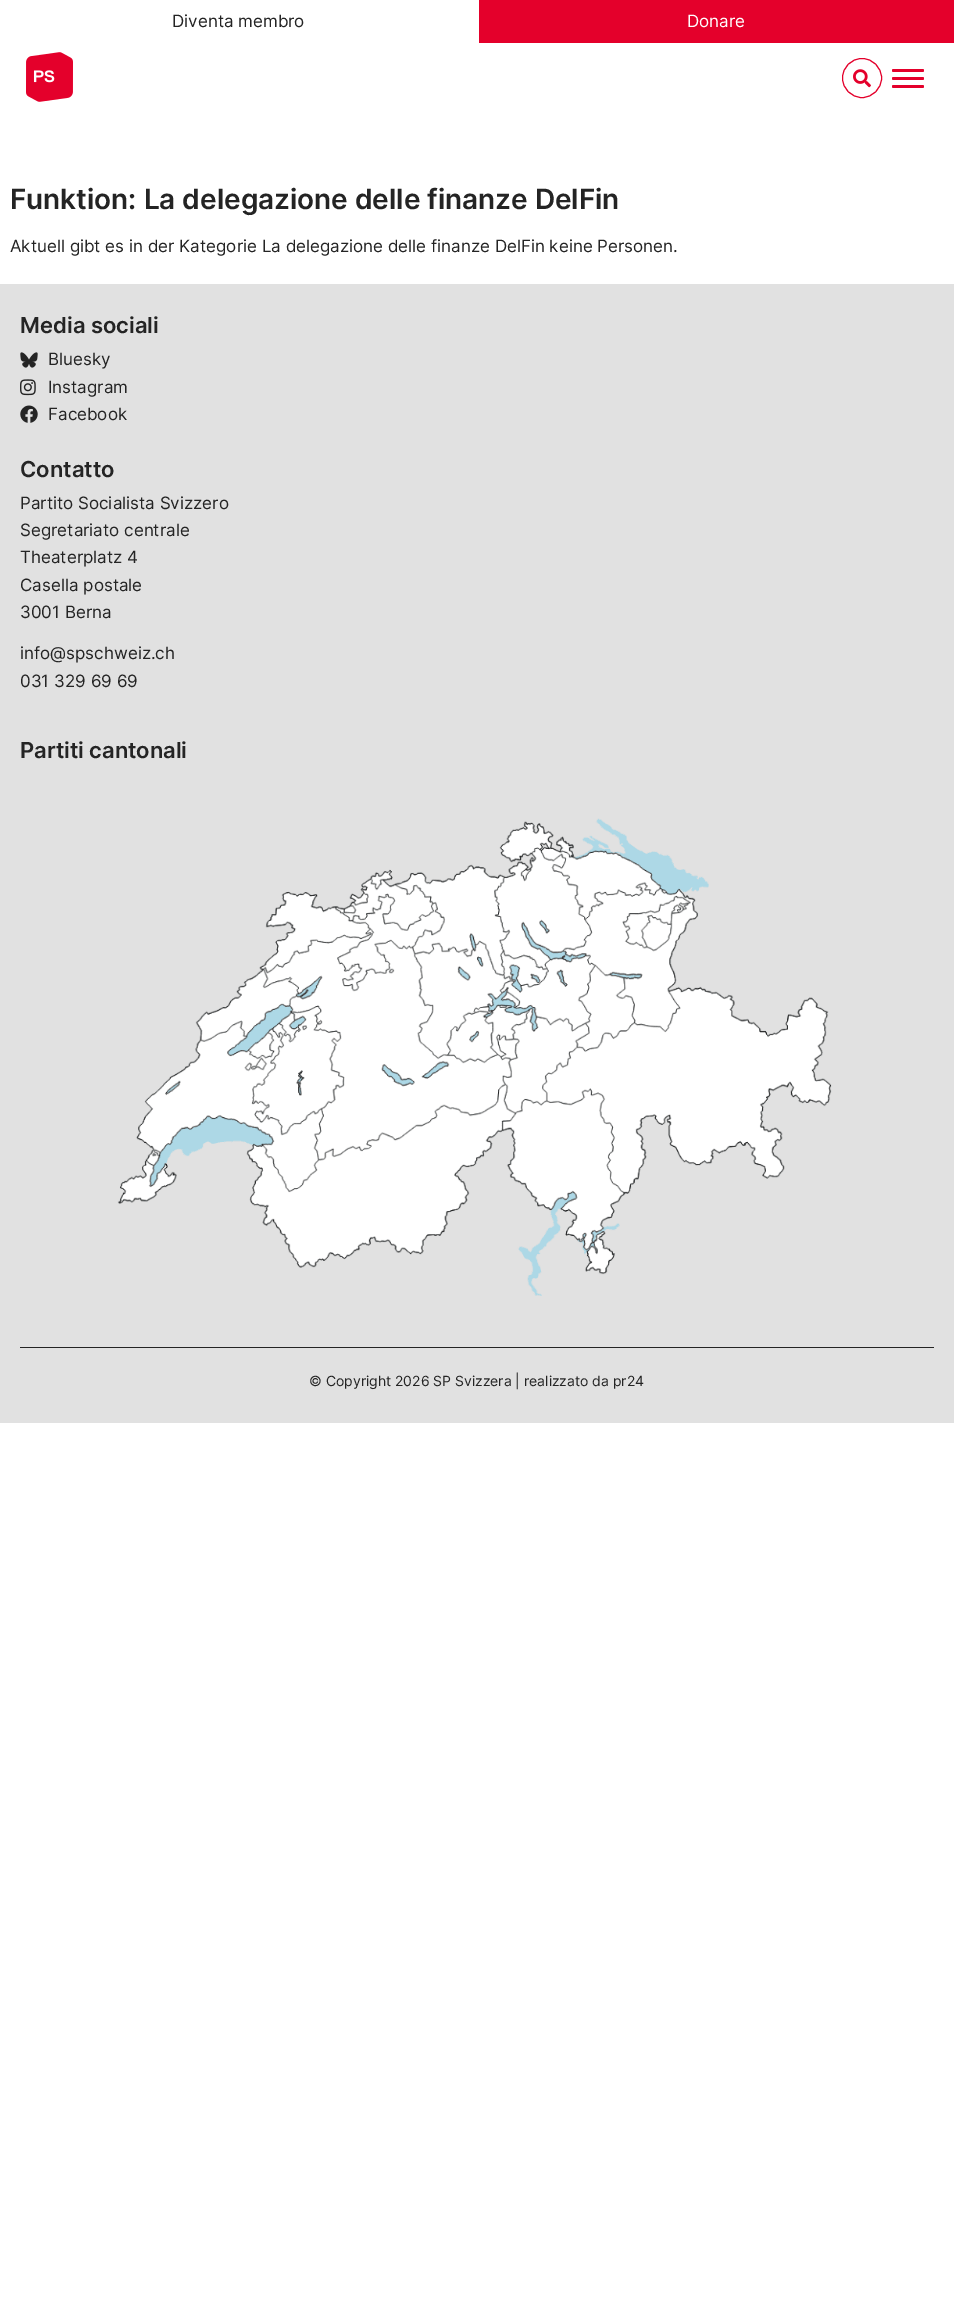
%!PS
<< /PageSize [954 2306] >> setpagedevice
/roundrect { 5 dict begin { /r /h /w /y /x } { exch def } forall
  x r add y moveto x w add y 2 copy h add r arct x w add y h add x 1 index r arct
  x y h add x y r arct x y 2 copy exch w add exch r arct closepath end } def
/picture { 5 dict begin { /h /w /y /x /name } { exch def } forall
  gsave x y translate w h scale
  w h 8 [w 0 0 h 0 0] name (r) file false 3 colorimage grestore end } def
0 2306 translate 1 -1 scale
4 setmiterlimit
1 setgray
0 0 954 2306 rectfill
0.894 0 0.169 setrgbcolor
479 0 475 43 rectfill
/Inter-Regular [17 0 0 -17 0 0] selectfont
0.141 setgray
172 27 moveto (Diventa membro) show
1 setgray
687 27 moveto (Donare) show
(img1.rgb) 26 52 47 50 picture
0.894 0 0.169 setrgbcolor
newpath 862 78 19.5 0 360 arc closepath stroke
(img2.rgb) 853 69 18 19 picture
892 69 32 3 1.5 roundrect fill
892 77 32 3 1.5 roundrect fill
892 85 32 3 1.5 roundrect fill
/Inter-SemiBold [28 0 0 -28 0 0] selectfont
0.141 setgray
10 209 moveto (Funktion: La delegazione delle finanze DelFin) show
/Inter-Regular [17 0 0 -17 0 0] selectfont
10 252 moveto (Aktuell gibt es in der Kategorie La delegazione delle finanze DelFin keine Personen.) show
0.882 setgray
0 284 954 1139 rectfill
/Inter-SemiBold [22 0 0 -22 0 0] selectfont
0.141 setgray
20 333 moveto (Media sociali) show
(img3.rgb) 20 352 18 16 picture
/Inter-Regular [17 0 0 -17 0 0] selectfont
48 365 moveto (Bluesky) show
(img4.rgb) 20 379 16 17 picture
48 393 moveto (Instagram) show
(img5.rgb) 20 405 18 18 picture
48 420 moveto (Facebook) show
/Inter-SemiBold [22 0 0 -22 0 0] selectfont
20 477 moveto (Contatto) show
/Inter-Regular [17 0 0 -17 0 0] selectfont
20 509 moveto (Partito Socialista Svizzero) show
20 536 moveto (Segretariato centrale) show
20 563 moveto (Theaterplatz 4) show
20 591 moveto (Casella postale) show
20 618 moveto (3001 Berna) show
20 659 moveto (info@spschweiz.ch) show
20 687 moveto (031 329 69 69) show
/Inter-SemiBold [22 0 0 -22 0 0] selectfont
20 758 moveto (Partiti cantonali) show
(img6.rgb) 117 818 715 478 picture
20 1347 914 1 rectfill
/Inter-Regular [14 0 0 -14 0 0] selectfont
309 1386 moveto (© Copyright 2026 SP Svizzera | realizzato da pr24) show
showpage
